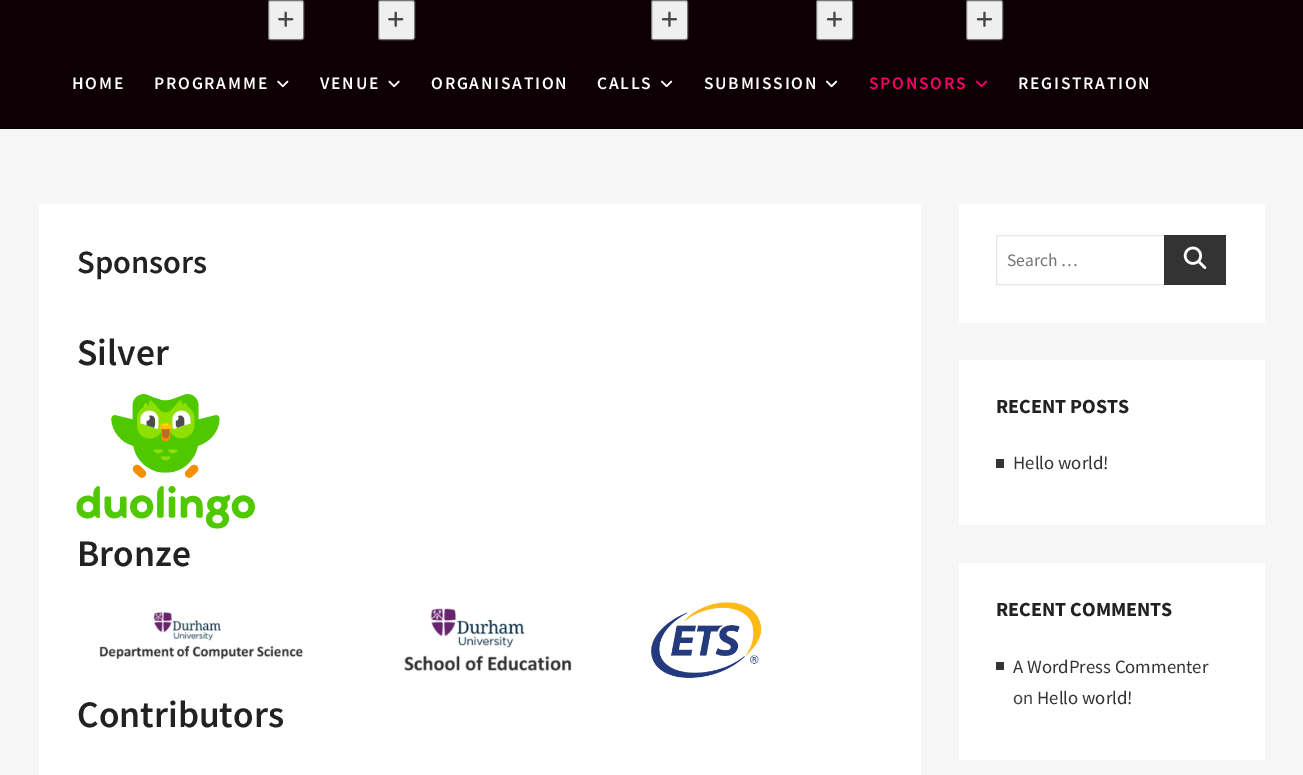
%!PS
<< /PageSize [1303 775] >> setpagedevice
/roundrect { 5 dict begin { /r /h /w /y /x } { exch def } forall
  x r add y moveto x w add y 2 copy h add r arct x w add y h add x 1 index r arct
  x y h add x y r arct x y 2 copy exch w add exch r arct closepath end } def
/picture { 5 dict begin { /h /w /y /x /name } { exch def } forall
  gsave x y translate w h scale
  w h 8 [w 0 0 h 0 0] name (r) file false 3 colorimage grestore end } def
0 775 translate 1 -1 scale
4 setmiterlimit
0.965 setgray
0 0 1303 775 rectfill
0.051 0 0.02 setrgbcolor
0 0 1303 129 rectfill
/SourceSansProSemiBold-SemiBold [17.5 0 0 -17.5 0 0] selectfont
1 setgray
72 89 moveto 1.75 0 (HOME) ashow
0.937 setgray
268.5 0.5 35 39 2 roundrect gsave fill grestore
0.463 setgray
stroke
(img1.rgb) 278 11 16 16 picture
1 setgray
154 89 moveto 1.75 0 (PROGRAMME) ashow
(img2.rgb) 277 80 12 8 picture
0.937 setgray
378.5 0.5 36 39 2 roundrect gsave fill grestore
0.463 setgray
stroke
(img1.rgb) 388 11 16 16 picture
1 setgray
320 89 moveto 1.75 0 (VENUE) ashow
(img3.rgb) 388 80 12 8 picture
431 89 moveto 1.75 0 (ORGANISATION) ashow
0.937 setgray
651.5 0.5 36 39 2 roundrect gsave fill grestore
0.463 setgray
stroke
(img4.rgb) 661 11 17 16 picture
1 setgray
597 89 moveto 1.75 0 (CALLS) ashow
(img5.rgb) 661 80 12 8 picture
0.937 setgray
816.5 0.5 36 39 2 roundrect gsave fill grestore
0.463 setgray
stroke
(img4.rgb) 826 11 17 16 picture
1 setgray
704 89 moveto 1.75 0 (SUBMISSION) ashow
(img5.rgb) 826 80 12 8 picture
0.937 setgray
966.5 0.5 36 39 2 roundrect gsave fill grestore
0.463 setgray
stroke
(img4.rgb) 976 11 17 16 picture
0.973 0 0.408 setrgbcolor
869 89 moveto 1.75 0 (SPONSORS) ashow
(img6.rgb) 976 80 12 8 picture
1 setgray
1018 89 moveto 1.75 0 (REGISTRATION) ashow
39 204 882 571 rectfill
/SourceSansProSemiBold-SemiBold [32.5 0 0 -32.5 0 0] selectfont
0.133 setgray
77 273 moveto (Sponsors) show
/SourceSansProSemiBold-SemiBold [37.5 0 0 -37.5 0 0] selectfont
77 365 moveto (Silver) show
(img7.rgb) 76 394 179 135 picture
77 566 moveto (Bronze) show
(img8.rgb) 99 612 204 48 picture
(img9.rgb) 404 608 168 63 picture
(img10.rgb) 651 602 111 76 picture
77 727 moveto (Contributors) show
1 setgray
959 204 306 119 rectfill
0.902 setgray
996.5 235.5 168 49 rectstroke
/SourceSansPro-Regular [17.5 0 0 -17.5 0 0] selectfont
0.459 setgray
1007 266 moveto (Search …) show
0.2 setgray
1164 235 62 50 rectfill
(img11.rgb) 1183 246 24 23 picture
1 setgray
959 360 306 165 rectfill
/SourceSansPro-Bold [20 0 0 -20 0 0] selectfont
0.133 setgray
996 413 moveto (RECENT POSTS) show
0.204 setgray
996 459 8 9 rectfill
/SourceSansPro-Regular [18.75 0 0 -18.75 0 0] selectfont
1013 469 moveto (Hello world!) show
1 setgray
959 563 306 197 rectfill
/SourceSansPro-Bold [20 0 0 -20 0 0] selectfont
0.133 setgray
996 616 moveto (RECENT COMMENTS) show
0.204 setgray
996 662 8 8 rectfill
/SourceSansPro-Regular [18.75 0 0 -18.75 0 0] selectfont
1013 673 moveto (A WordPress Commenter) show
0.267 setgray
1013 704 moveto (on) show
0.204 setgray
1037 704 moveto (Hello world!) show
showpage
